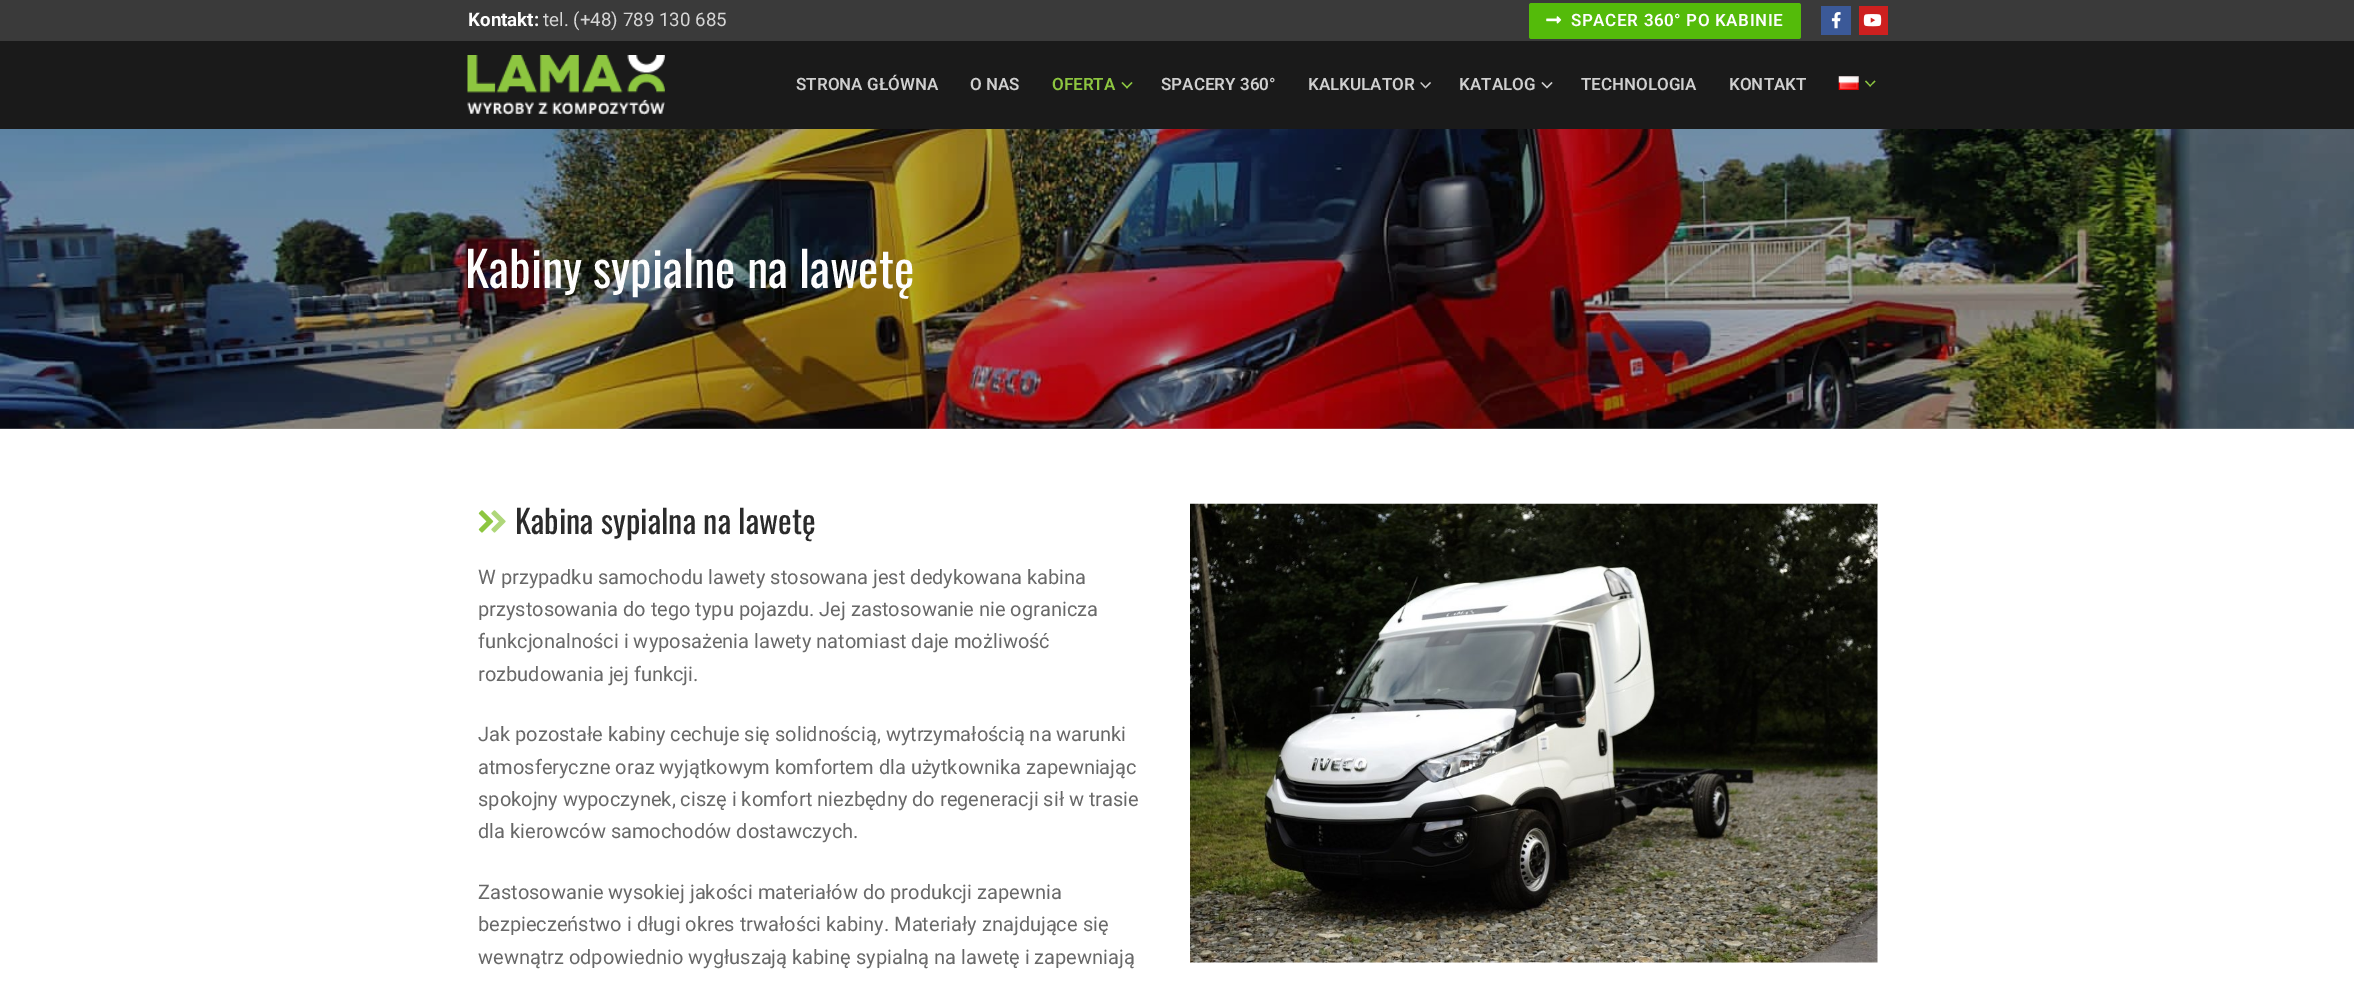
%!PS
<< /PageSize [2354 983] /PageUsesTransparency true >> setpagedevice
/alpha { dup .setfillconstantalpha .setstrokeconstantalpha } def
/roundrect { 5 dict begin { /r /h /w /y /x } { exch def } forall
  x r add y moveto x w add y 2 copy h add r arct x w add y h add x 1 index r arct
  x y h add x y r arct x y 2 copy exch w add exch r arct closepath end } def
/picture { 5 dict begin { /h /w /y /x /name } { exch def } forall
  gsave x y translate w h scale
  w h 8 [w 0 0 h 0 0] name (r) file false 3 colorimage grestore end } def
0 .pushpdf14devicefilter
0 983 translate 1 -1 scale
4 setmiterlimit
1 setgray
0 0 2354 983 rectfill
0.227 setgray
0 0 2354 41 rectfill
/Roboto-Bold [18.75 0 0 -18.75 0 0] selectfont
0.992 setgray
468 26 moveto (Kontakt:) show
/Roboto-Regular [18.75 0 0 -18.75 0 0] selectfont
0.839 setgray
543 26 moveto (tel. \(+48\) 789 130 685) show
0.329 0.733 0.039 setrgbcolor
1529 3 272 36 2.5 roundrect fill
(img1.rgb) 1546 16 16 8 picture
/Roboto-SemiBold [17 0 0 -17 0 0] selectfont
0.992 setgray
1571 26 moveto 0.6 0 (SPACER 360° PO KABINIE) ashow
0.231 0.349 0.596 setrgbcolor
1821 6 30 29 rectfill
(img2.rgb) 1831 12 10 17 picture
0.804 0.125 0.122 setrgbcolor
1859 6 29 29 rectfill
(img3.rgb) 1863 14 19 13 picture
0.102 setgray
0 41 2354 88 rectfill
(img4.rgb) 467 55 198 60 picture
0.812 setgray
796 90 moveto (STRONA GŁÓWNA) show
970 90 moveto (O NAS) show
0.553 0.776 0.251 setrgbcolor
1052 90 moveto (OFERTA) show
newpath 1127 88.5 moveto 1121.5 83 lineto 1122.5 82 lineto 1128 87.5 lineto closepath fill
newpath 1127 88.5 moveto 1126 87.5 lineto 1131.5 82 lineto 1132.5 83 lineto closepath fill
0.812 setgray
1161 90 moveto (SPACERY 360°) show
1308 90 moveto (KALKULATOR) show
newpath 1425.5 88.5 moveto 1420.5 83 lineto 1421 82 lineto 1425.5 86.5 lineto closepath fill
0.79 alpha
1 setgray
newpath 1431 83 moveto 1425.5 88.5 lineto 1425.5 86.5 lineto 1430 82 lineto closepath fill
1 alpha
0.812 setgray
1459 90 moveto (KATALOG) show
newpath 1547 88.5 moveto 1541.5 83 lineto 1542.5 82 lineto 1547 86.5 lineto closepath 1552.5 83 moveto 1547 88.5 lineto 1547 86.5 lineto 1551.5 82 lineto closepath fill
1581 90 moveto (TECHNOLOGIA) show
1729 90 moveto (KONTAKT) show
(img5.rgb) 1838 76 21 14 picture
0.553 0.776 0.251 setrgbcolor
newpath 1870 86.5 moveto 1865 81.5 lineto 1866 80.5 lineto 1871 86 lineto closepath fill
newpath 1870 86.5 moveto 1869.5 86 lineto 1874.5 80.5 lineto 1875.5 81.5 lineto closepath fill
(img6.rgb) 0 129 2354 300 picture
/Oswald-Regular [48.5 0 0 -48.5 0 0] selectfont
0.992 setgray
465 288 moveto (Kabiny sypialne na lawetę) show
(img7.rgb) 478 510 16 23 picture
(img8.rgb) 491 510 15 23 picture
/Oswald-Regular [32.4 0 0 -32.4 0 0] selectfont
0.169 setgray
515 534 moveto (Kabina sypialna na lawetę) show
/Roboto-Regular [20 0 0 -20 0 0] selectfont
0.408 setgray
478 584 moveto (W przypadku samochodu lawety stosowana jest dedykowana kabina) show
478 616 moveto (przystosowania do tego typu pojazdu. Jej zastosowanie nie ogranicza) show
478 648 moveto (funkcjonalności i wyposażenia lawety natomiast daje możliwość) show
478 681 moveto (rozbudowania jej funkcji.) show
478 741 moveto (Jak pozostałe kabiny cechuje się solidnością, wytrzymałością na warunki) show
478 774 moveto (atmosferyczne oraz wyjątkowym komfortem dla użytkownika zapewniając) show
478 806 moveto (spokojny wypoczynek, ciszę i komfort niezbędny do regeneracji sił w trasie) show
478 838 moveto (dla kierowców samochodów dostawczych.) show
478 899 moveto (Zastosowanie wysokiej jakości materiałów do produkcji zapewnia) show
478 931 moveto (bezpieczeństwo i długi okres trwałości kabiny. Materiały znajdujące się) show
478 964 moveto (wewnątrz odpowiednio wygłuszają kabinę sypialną na lawetę i zapewniają) show
(img9.rgb) 1190 503 688 460 picture
.poppdf14devicefilter showpage
